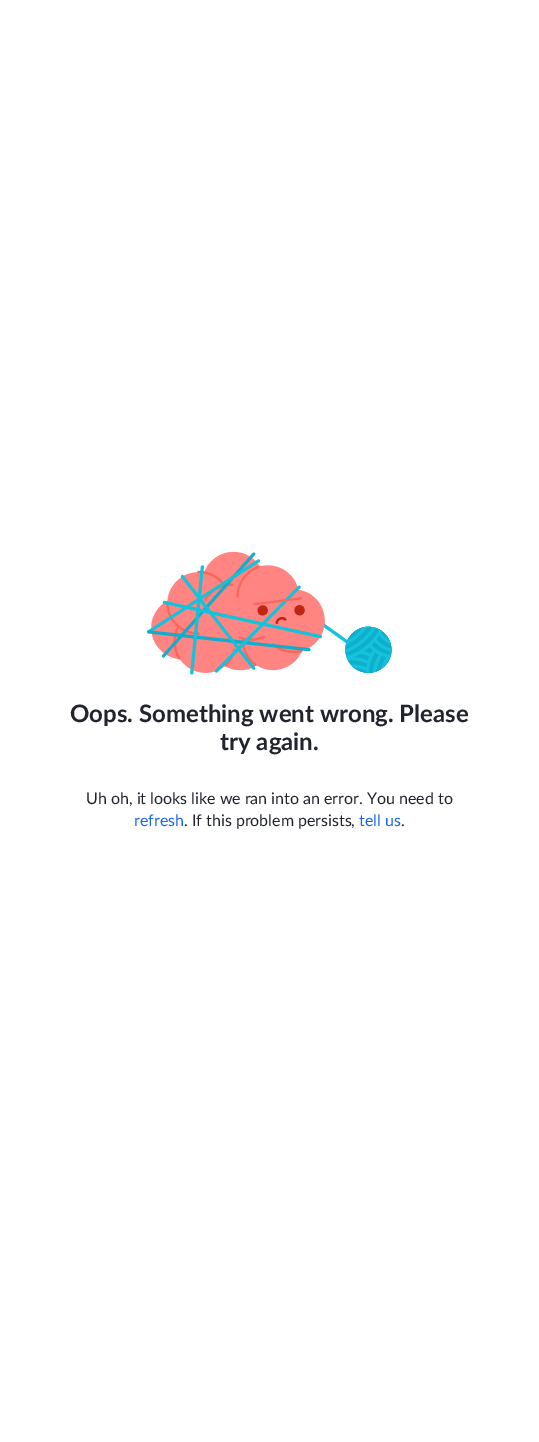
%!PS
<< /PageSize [539 1442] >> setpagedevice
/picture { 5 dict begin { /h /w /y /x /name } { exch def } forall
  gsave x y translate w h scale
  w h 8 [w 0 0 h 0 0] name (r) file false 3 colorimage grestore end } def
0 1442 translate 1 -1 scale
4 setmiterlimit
1 setgray
0 0 539 1442 rectfill
(img1.rgb) 147 551 245 124 picture
/Lato-Bold [24 0 0 -24 0 0] selectfont
0.129 0.141 0.173 setrgbcolor
70 722 moveto (Oops. Something went wrong. Please) show
220 750 moveto (try again.) show
/Lato-Regular [16 0 0 -16 0 0] selectfont
86 804 moveto (Uh oh, it looks like we ran into an error. You need to) show
0.094 0.396 0.949 setrgbcolor
134 826 moveto (refresh) show
0.129 0.141 0.173 setrgbcolor
184 826 moveto (. If this problem persists,) show
0.094 0.396 0.949 setrgbcolor
359 826 moveto (tell us) show
0.129 0.141 0.173 setrgbcolor
401 826 moveto (.) show
showpage
